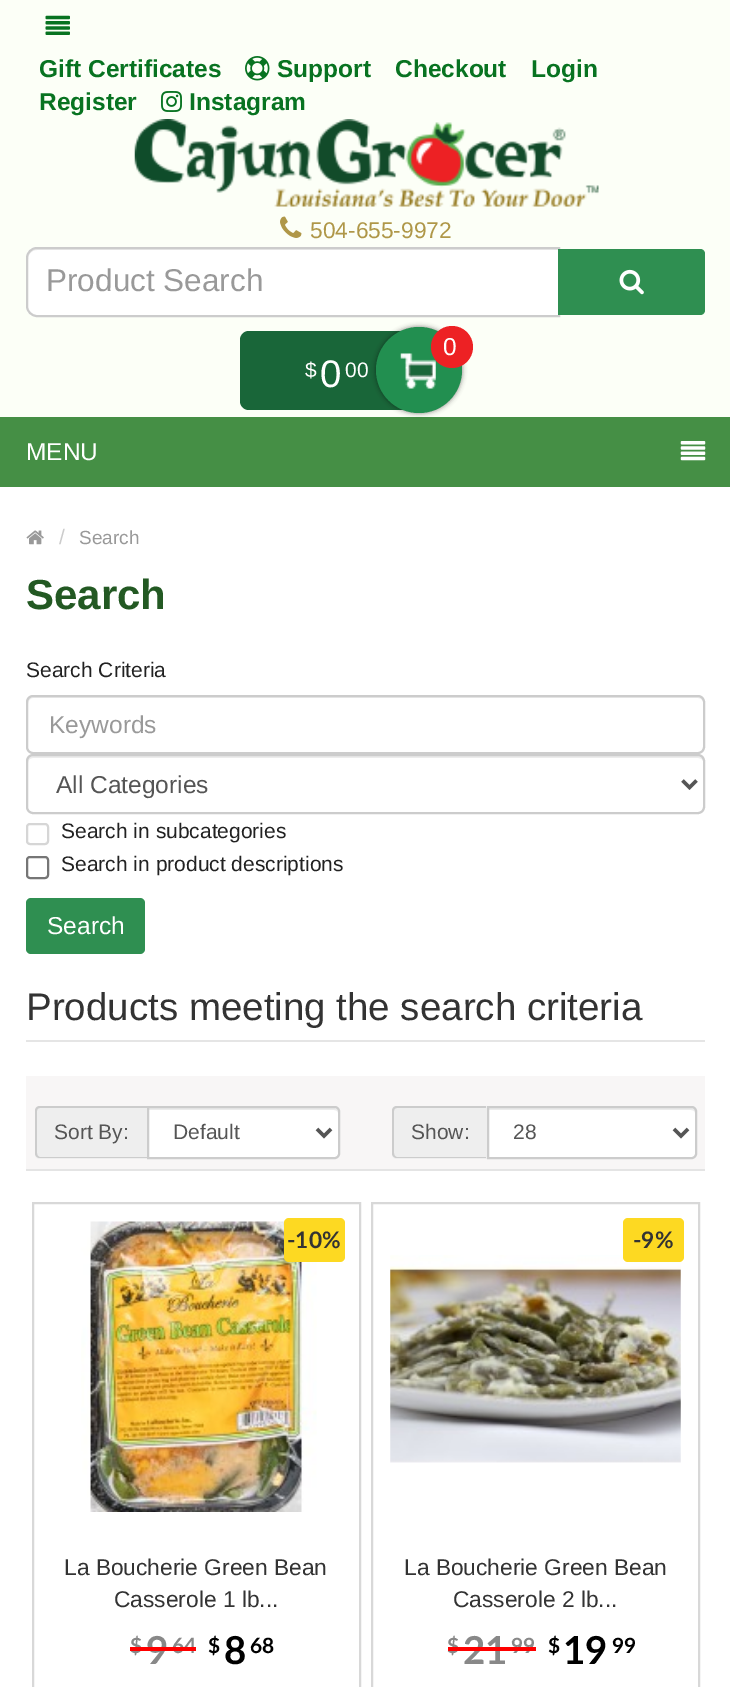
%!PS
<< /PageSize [730 1687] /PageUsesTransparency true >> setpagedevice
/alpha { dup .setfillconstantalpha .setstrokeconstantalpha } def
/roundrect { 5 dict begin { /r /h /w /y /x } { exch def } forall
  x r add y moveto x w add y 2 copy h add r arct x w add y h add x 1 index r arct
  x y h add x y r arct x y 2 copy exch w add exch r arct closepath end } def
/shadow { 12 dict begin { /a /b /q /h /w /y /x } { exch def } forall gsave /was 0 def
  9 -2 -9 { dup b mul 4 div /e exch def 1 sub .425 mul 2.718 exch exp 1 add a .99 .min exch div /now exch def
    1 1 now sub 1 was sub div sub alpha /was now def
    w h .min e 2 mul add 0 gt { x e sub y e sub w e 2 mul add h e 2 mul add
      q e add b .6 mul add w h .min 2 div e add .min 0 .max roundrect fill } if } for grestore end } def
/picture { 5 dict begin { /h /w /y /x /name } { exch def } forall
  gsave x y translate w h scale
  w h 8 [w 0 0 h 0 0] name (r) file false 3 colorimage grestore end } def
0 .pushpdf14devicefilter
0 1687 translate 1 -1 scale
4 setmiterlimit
1 setgray
0 0 730 1687 rectfill
0.988 1 0.969 setrgbcolor
0 0 730 417 rectfill
(img1.rgb) 45 15 25 20 picture
/LiberationSans-Bold [24.5 0 0 -24.5 0 0] selectfont
0.031 0.451 0.129 setrgbcolor
39 77 moveto (Gift Certificates) show
(img2.rgb) 245 56 25 25 picture
277 77 moveto (Support) show
395 77 moveto (Checkout) show
531 77 moveto (Login) show
39 110 moveto (Register) show
(img3.rgb) 161 91 21 21 picture
189 110 moveto (Instagram) show
(img4.rgb) 134 119 465 88 picture
(img5.rgb) 280 216 22 22 picture
/LiberationSans-Regular [22.75 0 0 -22.75 0 0] selectfont
0.686 0.592 0.282 setrgbcolor
310 238 moveto (504-655-9972) show
1 setgray
newpath 37 247 moveto 560 247 lineto 560 317 lineto 37 317 lineto 31 317 26 312 26 306 curveto 26 258 lineto 26 252 31 247 37 247 curveto closepath fill
0.925 setgray
newpath 37 250 moveto 558 250 lineto 558 249 lineto 37 249 lineto 31 249 28 254 28 259 curveto 28 254 32 250 37 250 curveto closepath fill
0.8 setgray
2 setlinewidth
newpath 37 248 moveto 559 248 lineto 559 316 lineto 37 316 lineto 31.5 316 27 311.5 27 306 curveto 27 258 lineto 27 252.5 31.5 248 37 248 curveto closepath stroke
/LiberationSans-Regular [31.5 0 0 -31.5 0 0] selectfont
0.6 setgray
46 291 moveto (Product Search) show
0.184 0.561 0.318 setrgbcolor
newpath 558 249 moveto 700 249 lineto 703 249 705 251 705 254 curveto 705 310 lineto 705 313 703 315 700 315 curveto 558 315 lineto closepath fill
(img6.rgb) 619 269 25 26 picture
0.098 0.4 0.224 setrgbcolor
240 331 201 79 9 roundrect fill
0.271 0.561 0.271 setrgbcolor
0 417 730 70 rectfill
0 setgray
376 327 86 86 43 2.5 0.5 shadow
0.133 0.561 0.314 setrgbcolor
newpath 419 370 43 0 360 arc closepath fill
(img7.rgb) 400 353 36 36 picture
0.929 0.129 0.141 setrgbcolor
newpath 452 347 21 0 360 arc closepath fill
/LiberationSans-Regular [24.5 0 0 -24.5 0 0] selectfont
1 setgray
443 355 moveto (0) show
/LiberationSans-Regular [21 0 0 -21 0 0] selectfont
305 377 moveto ($) show
/LiberationSans-Regular [38.5 0 0 -38.5 0 0] selectfont
320 387 moveto (0) show
/LiberationSans-Regular [21 0 0 -21 0 0] selectfont
345 377 moveto (00) show
/LiberationSans-Regular [24.5 0 0 -24.5 0 0] selectfont
26 460 moveto (MENU) show
(img8.rgb) 680 441 26 20 picture
(img9.rgb) 26 530 18 15 picture
/LiberationSans-Regular [21 0 0 -21 0 0] selectfont
0.8 setgray
59 544 moveto (/) show
/LiberationSans-Regular [19 0 0 -19 0 0] selectfont
0.6 setgray
79 544 moveto (Search) show
/LiberationSans-Bold [42 0 0 -42 0 0] selectfont
0.137 0.349 0.137 setrgbcolor
26 609 moveto (Search) show
/LiberationSans-Regular [21 0 0 -21 0 0] selectfont
0.133 setgray
26 677 moveto (Search Criteria) show
0.925 setgray
newpath 33 698 moveto 698 698 lineto 701 698 704 701 704 704 curveto 704 702 lineto 704 699 702 697 699 697 curveto 33 697 lineto 30 697 28 699 28 702 curveto 28 704 lineto 28 701 30 698 33 698 curveto closepath fill
0.8 setgray
27 696 677 57 6 roundrect stroke
/LiberationSans-Regular [24.5 0 0 -24.5 0 0] selectfont
0.6 setgray
49 733 moveto (Keywords) show
0.925 setgray
newpath 33 758 moveto 698 758 lineto 701 758 704 760 704 763 curveto 704 761 lineto 704 758 702 756 699 756 curveto 33 756 lineto 30 756 28 758 28 761 curveto 28 763 lineto 28 760 30 758 33 758 curveto closepath fill
0.8 setgray
27 755 677 58 6 roundrect stroke
0.333 setgray
3.5 setlinewidth
newpath 682.5 780.5 moveto 689.5 787.5 lineto 696.5 780.5 lineto stroke
56 793 moveto (All Categories) show
0.839 setgray
2 setlinewidth
27 824 21 20 3 roundrect stroke
/LiberationSans-Regular [21 0 0 -21 0 0] selectfont
0.133 setgray
61 838 moveto (Search in subcategories) show
0.463 setgray
27 857 21 21 3 roundrect stroke
0.133 setgray
61 871 moveto (Search in product descriptions) show
0.184 0.561 0.318 setrgbcolor
26 898 119 56 5 roundrect fill
/LiberationSans-Regular [24.5 0 0 -24.5 0 0] selectfont
1 setgray
47 934 moveto (Search) show
0.898 setgray
26 1040 679 2 rectfill
/LiberationSans-Regular [38.5 0 0 -38.5 0 0] selectfont
0.2 setgray
26 1020 moveto (Products meeting the search criteria) show
0.973 0.965 0.965 setrgbcolor
26 1076 679 93 rectfill
0.894 setgray
26 1169 679 2 rectfill
0.933 setgray
newpath 40 1106 moveto 147 1106 lineto 147 1159 lineto 40 1159 lineto 37 1159 35 1157 35 1154 curveto 35 1111 lineto 35 1108 37 1106 40 1106 curveto closepath fill
0.8 setgray
newpath 40 1106 moveto 147 1106 lineto 147 1158 lineto 40 1158 lineto 37 1158 35 1156 35 1153 curveto 35 1111 lineto 35 1108 37 1106 40 1106 curveto closepath 40 1108 moveto 147 1108 lineto 147 1157 lineto 40 1157 lineto 38 1157 37 1155 37 1153 curveto 37 1111 lineto 37 1109 38 1108 40 1108 curveto closepath eofill
/LiberationSans-Regular [21 0 0 -21 0 0] selectfont
0.333 setgray
54 1139 moveto (Sort By:) show
1 setgray
newpath 147 1106 moveto 335 1106 lineto 338 1106 340 1108 340 1111 curveto 340 1154 lineto 340 1157 338 1159 335 1159 curveto 147 1159 lineto closepath fill
0.925 setgray
newpath 149 1110 moveto 334 1110 lineto 336 1110 338 1111 338 1113 curveto 338 1110 337 1108 334 1108 curveto 149 1108 lineto closepath fill
0.8 setgray
newpath 148 1107 moveto 335 1107 lineto 337 1107 339 1109 339 1111 curveto 339 1154 lineto 339 1156 337 1158 335 1158 curveto 148 1158 lineto closepath stroke
0.333 setgray
3.5 setlinewidth
newpath 317 1129 moveto 324 1136 lineto 331 1129 lineto stroke
173 1139 moveto (Default) show
0.933 setgray
newpath 397 1106 moveto 487 1106 lineto 487 1159 lineto 397 1159 lineto 394 1159 392 1157 392 1154 curveto 392 1111 lineto 392 1108 394 1106 397 1106 curveto closepath fill
0.8 setgray
newpath 397 1106 moveto 486 1106 lineto 486 1158 lineto 397 1158 lineto 394 1158 392 1156 392 1153 curveto 392 1111 lineto 392 1108 394 1106 397 1106 curveto closepath 397 1108 moveto 486 1108 lineto 486 1157 lineto 397 1157 lineto 395 1157 394 1155 394 1153 curveto 394 1111 lineto 394 1109 395 1108 397 1108 curveto closepath eofill
0.333 setgray
411 1139 moveto (Show:) show
1 setgray
newpath 487 1106 moveto 692 1106 lineto 695 1106 697 1108 697 1111 curveto 697 1154 lineto 697 1157 695 1159 692 1159 curveto 487 1159 lineto closepath fill
0.925 setgray
newpath 488 1110 moveto 691 1110 lineto 693 1110 695 1111 695 1113 curveto 695 1111 695 1109 693 1108 curveto 488 1108 lineto closepath fill
0.8 setgray
2 setlinewidth
newpath 488 1107 moveto 692 1107 lineto 694 1107 696 1109 696 1111 curveto 696 1154 lineto 696 1156 694 1158 692 1158 curveto 488 1158 lineto closepath stroke
0.333 setgray
3.5 setlinewidth
newpath 674 1129 moveto 681 1136 lineto 688 1129 lineto stroke
513 1139 moveto (28) show
0.847 setgray
2 setlinewidth
33 1203 327 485 rectstroke
(img10.rgb) 81 1221 236 291 picture
0.992 0.851 0.133 setrgbcolor
284 1218 61 44 5 roundrect fill
/Lato-Bold [22.75 0 0 -22.75 0 0] selectfont
0.2 setgray
287 1248 moveto (-10%) show
/Lato-Bold [21 0 0 -21 0 0] selectfont
0.533 setgray
130 1653 moveto ($) show
/Lato-Bold [38.5 0 0 -38.5 0 0] selectfont
146 1664 moveto (9) show
/Lato-Bold [21 0 0 -21 0 0] selectfont
172 1653 moveto (64) show
1 0 0 setrgbcolor
130 1647 66 4 rectfill
0 setgray
208 1653 moveto ($) show
/Lato-Bold [38.5 0 0 -38.5 0 0] selectfont
224 1664 moveto (8) show
/Lato-Bold [21 0 0 -21 0 0] selectfont
250 1653 moveto (68) show
/LiberationSans-Regular [22.75 0 0 -22.75 0 0] selectfont
0.2 setgray
64 1575 moveto (La Boucherie Green Bean) show
114 1607 moveto (Casserole 1 lb...) show
0.847 setgray
372 1203 327 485 rectstroke
(img11.rgb) 390 1255 291 208 picture
0.992 0.851 0.133 setrgbcolor
623 1218 61 44 5 roundrect fill
/Lato-Bold [22.75 0 0 -22.75 0 0] selectfont
0.2 setgray
633 1248 moveto (-9%) show
/Lato-Bold [21 0 0 -21 0 0] selectfont
0.533 setgray
447 1653 moveto ($) show
/Lato-Bold [38.5 0 0 -38.5 0 0] selectfont
463 1664 moveto (21) show
/Lato-Bold [21 0 0 -21 0 0] selectfont
511 1653 moveto (99) show
1 0 0 setrgbcolor
448 1647 88 4 rectfill
0 setgray
548 1653 moveto ($) show
/Lato-Bold [38.5 0 0 -38.5 0 0] selectfont
563 1664 moveto (19) show
/Lato-Bold [21 0 0 -21 0 0] selectfont
612 1653 moveto (99) show
/LiberationSans-Regular [22.75 0 0 -22.75 0 0] selectfont
0.2 setgray
404 1575 moveto (La Boucherie Green Bean) show
453 1607 moveto (Casserole 2 lb...) show
.poppdf14devicefilter showpage
